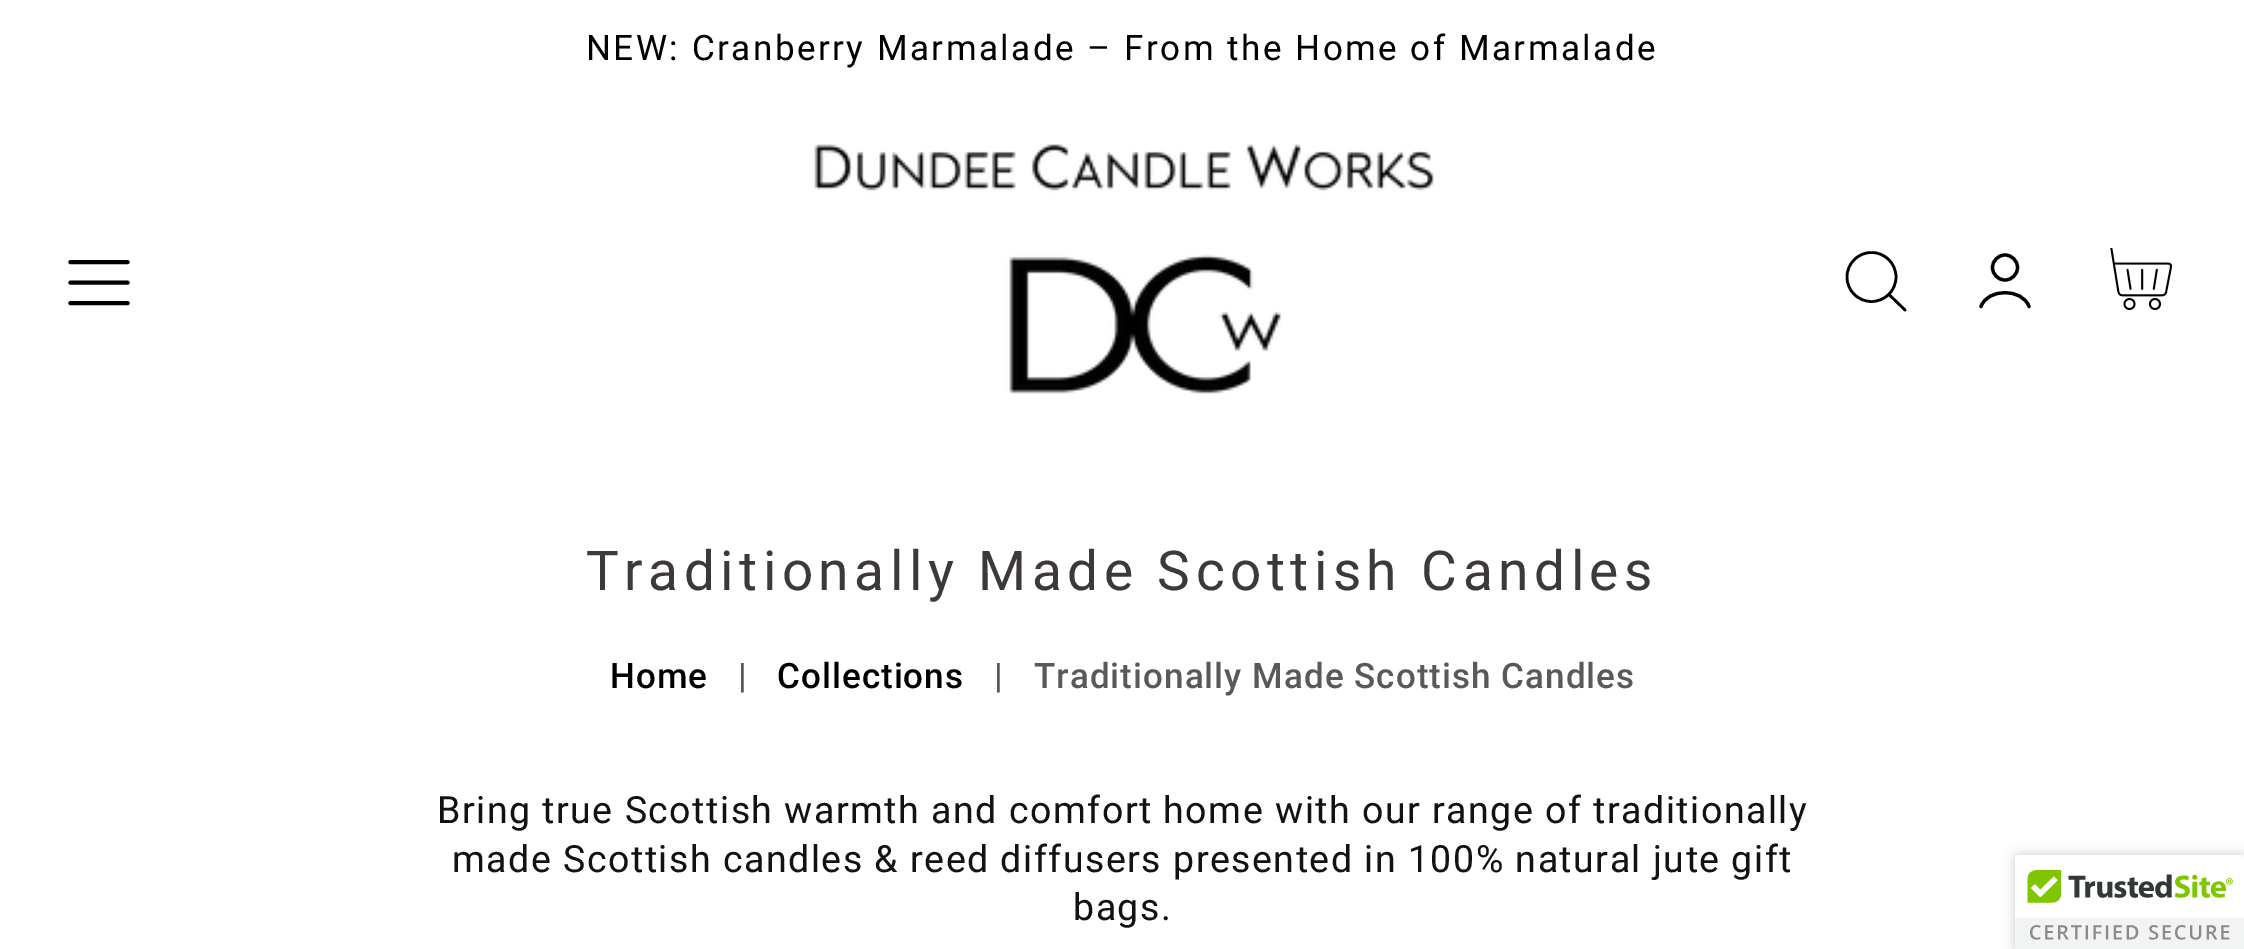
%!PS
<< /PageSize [2244 949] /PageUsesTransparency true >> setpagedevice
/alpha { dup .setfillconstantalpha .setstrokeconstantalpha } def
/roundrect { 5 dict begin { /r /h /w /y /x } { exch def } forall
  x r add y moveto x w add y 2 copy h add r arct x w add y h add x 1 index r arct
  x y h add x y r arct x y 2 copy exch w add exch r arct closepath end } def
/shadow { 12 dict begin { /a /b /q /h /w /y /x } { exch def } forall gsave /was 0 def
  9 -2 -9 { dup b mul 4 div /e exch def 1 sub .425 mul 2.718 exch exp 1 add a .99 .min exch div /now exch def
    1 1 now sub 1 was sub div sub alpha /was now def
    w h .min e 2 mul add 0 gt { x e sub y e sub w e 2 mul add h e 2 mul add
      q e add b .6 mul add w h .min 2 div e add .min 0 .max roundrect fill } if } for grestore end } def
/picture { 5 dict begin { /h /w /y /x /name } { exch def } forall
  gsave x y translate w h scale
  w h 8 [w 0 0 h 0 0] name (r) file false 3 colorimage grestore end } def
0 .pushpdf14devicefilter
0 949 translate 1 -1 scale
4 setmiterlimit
1 setgray
0 0 2244 949 rectfill
/Roboto-Regular [35 0 0 -35 0 0] selectfont
0 setgray
586 60 moveto 2.5 0 (NEW: Cranberry Marmalade – From the Home of Marmalade) ashow
4.1 setlinewidth
1 setlinecap
newpath 70.5 262 moveto 127.5 262 lineto 70.5 282.5 moveto 127.5 282.5 lineto 70.5 303 moveto 127.5 303 lineto stroke
(img1.rgb) 814 144 620 250 picture
2.6 setlinewidth
0 setlinecap
newpath 1871.5 277 24.5 0 360 arc closepath stroke
1 setlinecap
newpath 1889.5 295 moveto 1905 310 lineto stroke
3.2 setlinewidth
newpath 2029 306.5 moveto 2022.5 288 1987.5 288 1981 306.5 curveto stroke
0 setlinecap
newpath 2005 267.5 12.5 0 360 arc closepath stroke
(img2.rgb) 2110 248 63 62 picture
/Roboto-Regular [55 0 0 -55 0 0] selectfont
0.235 0.22 0.235 setrgbcolor
586 590 moveto 5.5 0 (Traditionally Made Scottish Candles) ashow
/Roboto-Medium [35 0 0 -35 0 0] selectfont
0 setgray
610 688 moveto 1.05 0 (Home) ashow
0.349 setgray
738 688 moveto 1.05 0 (|) ashow
0 setgray
777 688 moveto 1.05 0 (Collections) ashow
0.349 setgray
994 688 moveto 1.05 0 (|) ashow
1034 688 moveto 1.05 0 (Traditionally Made Scottish Candles) ashow
/Roboto-Regular [37.5 0 0 -37.5 0 0] selectfont
0.071 setgray
437 823 moveto 1.5 0 (Bring true Scottish warmth and comfort home with our range of traditionally) ashow
452 872 moveto 1.5 0 (made Scottish candles & reed diffusers presented in 100% natural jute gift) ashow
1073 920 moveto 1.5 0 (bags.) ashow
0 setgray
2015 855 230 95 5 6 0.2 shadow
1 setgray
newpath 2020 855 moveto 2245 855 lineto 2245 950 lineto 2015 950 lineto 2015 860 lineto 2015 857 2017 855 2020 855 curveto closepath fill
(img3.rgb) 2015 855 229 94 picture
.poppdf14devicefilter showpage
